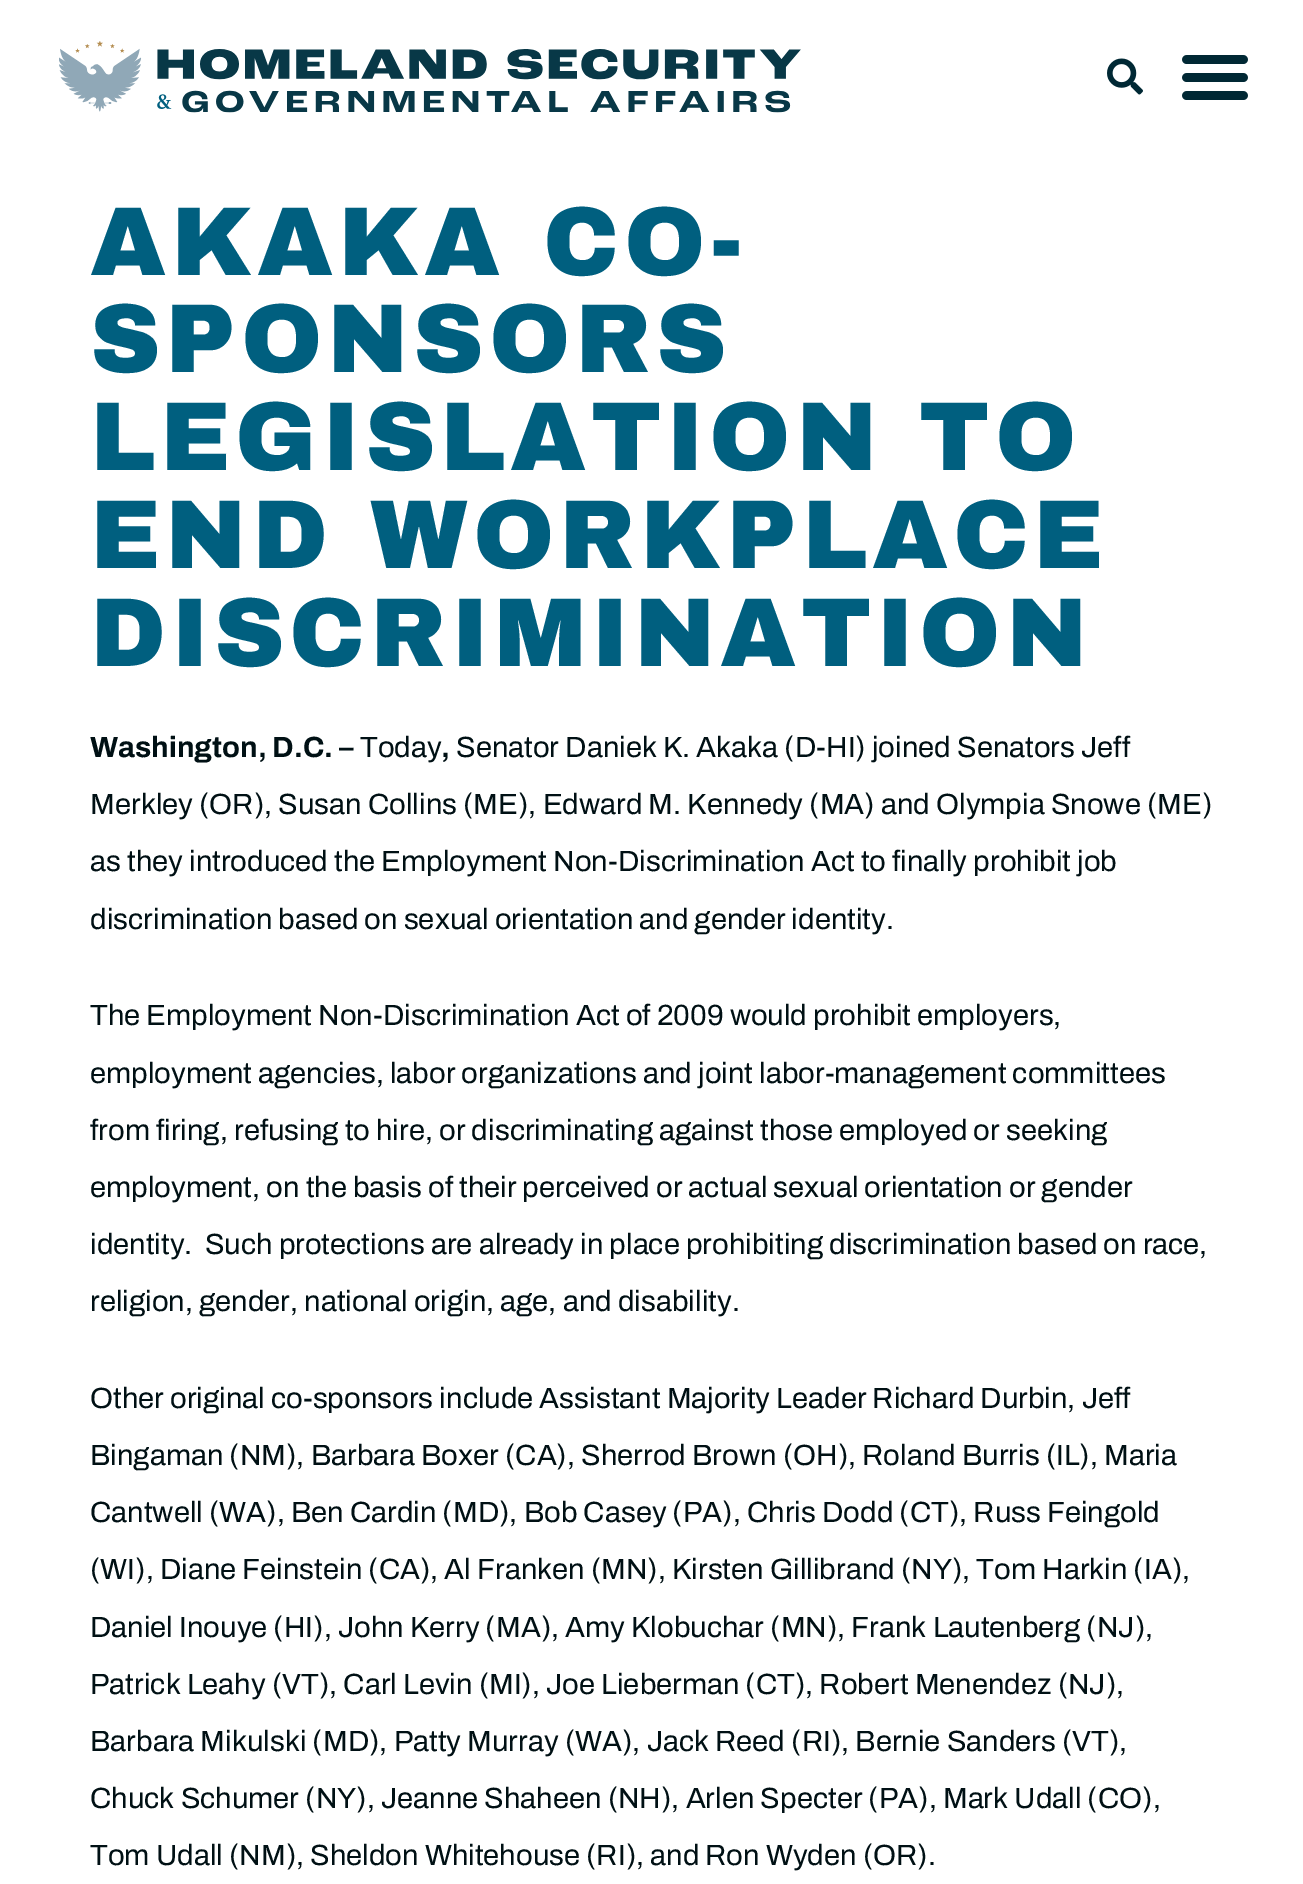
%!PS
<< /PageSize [1303 1884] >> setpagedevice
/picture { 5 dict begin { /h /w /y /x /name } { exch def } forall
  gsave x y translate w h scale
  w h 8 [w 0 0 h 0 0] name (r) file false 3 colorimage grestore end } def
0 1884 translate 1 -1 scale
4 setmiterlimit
1 setgray
0 0 1303 1884 rectfill
(img1.rgb) 59 41 742 72 picture
(img2.rgb) 1107 58 36 37 picture
(img3.rgb) 1182 55 66 45 picture
/ArchivoBlack-Black [97.9 0 0 -97.9 0 0] selectfont
0 0.373 0.498 setrgbcolor
90 275 moveto 4.75 0 (AKAKA CO-) ashow
90 372 moveto 4.75 0 (SPONSORS) ashow
90 470 moveto 4.75 0 (LEGISLATION TO) ashow
90 568 moveto 4.75 0 (END WORKPLACE) ashow
90 666 moveto 4.75 0 (DISCRIMINATION) ashow
/Archivo-Bold [29.25 0 0 -29.25 0 0] selectfont
0 0.063 0.078 setrgbcolor
90 757 moveto (Washington, D.C. –) show
/Archivo-Regular [29.25 0 0 -29.25 0 0] selectfont
360 757 moveto (Today) show
/Archivo-Bold [29.25 0 0 -29.25 0 0] selectfont
441 757 moveto (,) show
/Archivo-Regular [29.25 0 0 -29.25 0 0] selectfont
456 757 moveto (Senator Daniek K. Akaka \(D-HI\) joined Senators Jeff) show
90 814 moveto (Merkley \(OR\), Susan Collins \(ME\), Edward M. Kennedy \(MA\) and Olympia Snowe \(ME\)) show
90 871 moveto (as they introduced the Employment Non-Discrimination Act to finally prohibit job) show
90 929 moveto (discrimination based on sexual orientation and gender identity.) show
90 1025 moveto (The Employment Non-Discrimination Act of 2009 would prohibit employers,) show
90 1083 moveto (employment agencies, labor organizations and joint labor-management committees) show
90 1140 moveto (from firing, refusing to hire, or discriminating against those employed or seeking) show
90 1197 moveto (employment, on the basis of their perceived or actual sexual orientation or gender) show
90 1254 moveto (identity.  Such protections are already in place prohibiting discrimination based on race,) show
90 1311 moveto (religion, gender, national origin, age, and disability.) show
90 1408 moveto (Other original co-sponsors include Assistant Majority Leader Richard Durbin, Jeff) show
90 1465 moveto (Bingaman \(NM\), Barbara Boxer \(CA\), Sherrod Brown \(OH\), Roland Burris \(IL\), Maria) show
90 1522 moveto (Cantwell \(WA\), Ben Cardin \(MD\), Bob Casey \(PA\), Chris Dodd \(CT\), Russ Feingold) show
90 1579 moveto (\(WI\), Diane Feinstein \(CA\), Al Franken \(MN\), Kirsten Gillibrand \(NY\), Tom Harkin \(IA\),) show
90 1637 moveto (Daniel Inouye \(HI\), John Kerry \(MA\), Amy Klobuchar \(MN\), Frank Lautenberg \(NJ\),) show
90 1694 moveto (Patrick Leahy \(VT\), Carl Levin \(MI\), Joe Lieberman \(CT\), Robert Menendez \(NJ\),) show
90 1751 moveto (Barbara Mikulski \(MD\), Patty Murray \(WA\), Jack Reed \(RI\), Bernie Sanders \(VT\),) show
90 1808 moveto (Chuck Schumer \(NY\), Jeanne Shaheen \(NH\), Arlen Specter \(PA\), Mark Udall \(CO\),) show
90 1865 moveto (Tom Udall \(NM\), Sheldon Whitehouse \(RI\), and Ron Wyden \(OR\).) show
showpage
